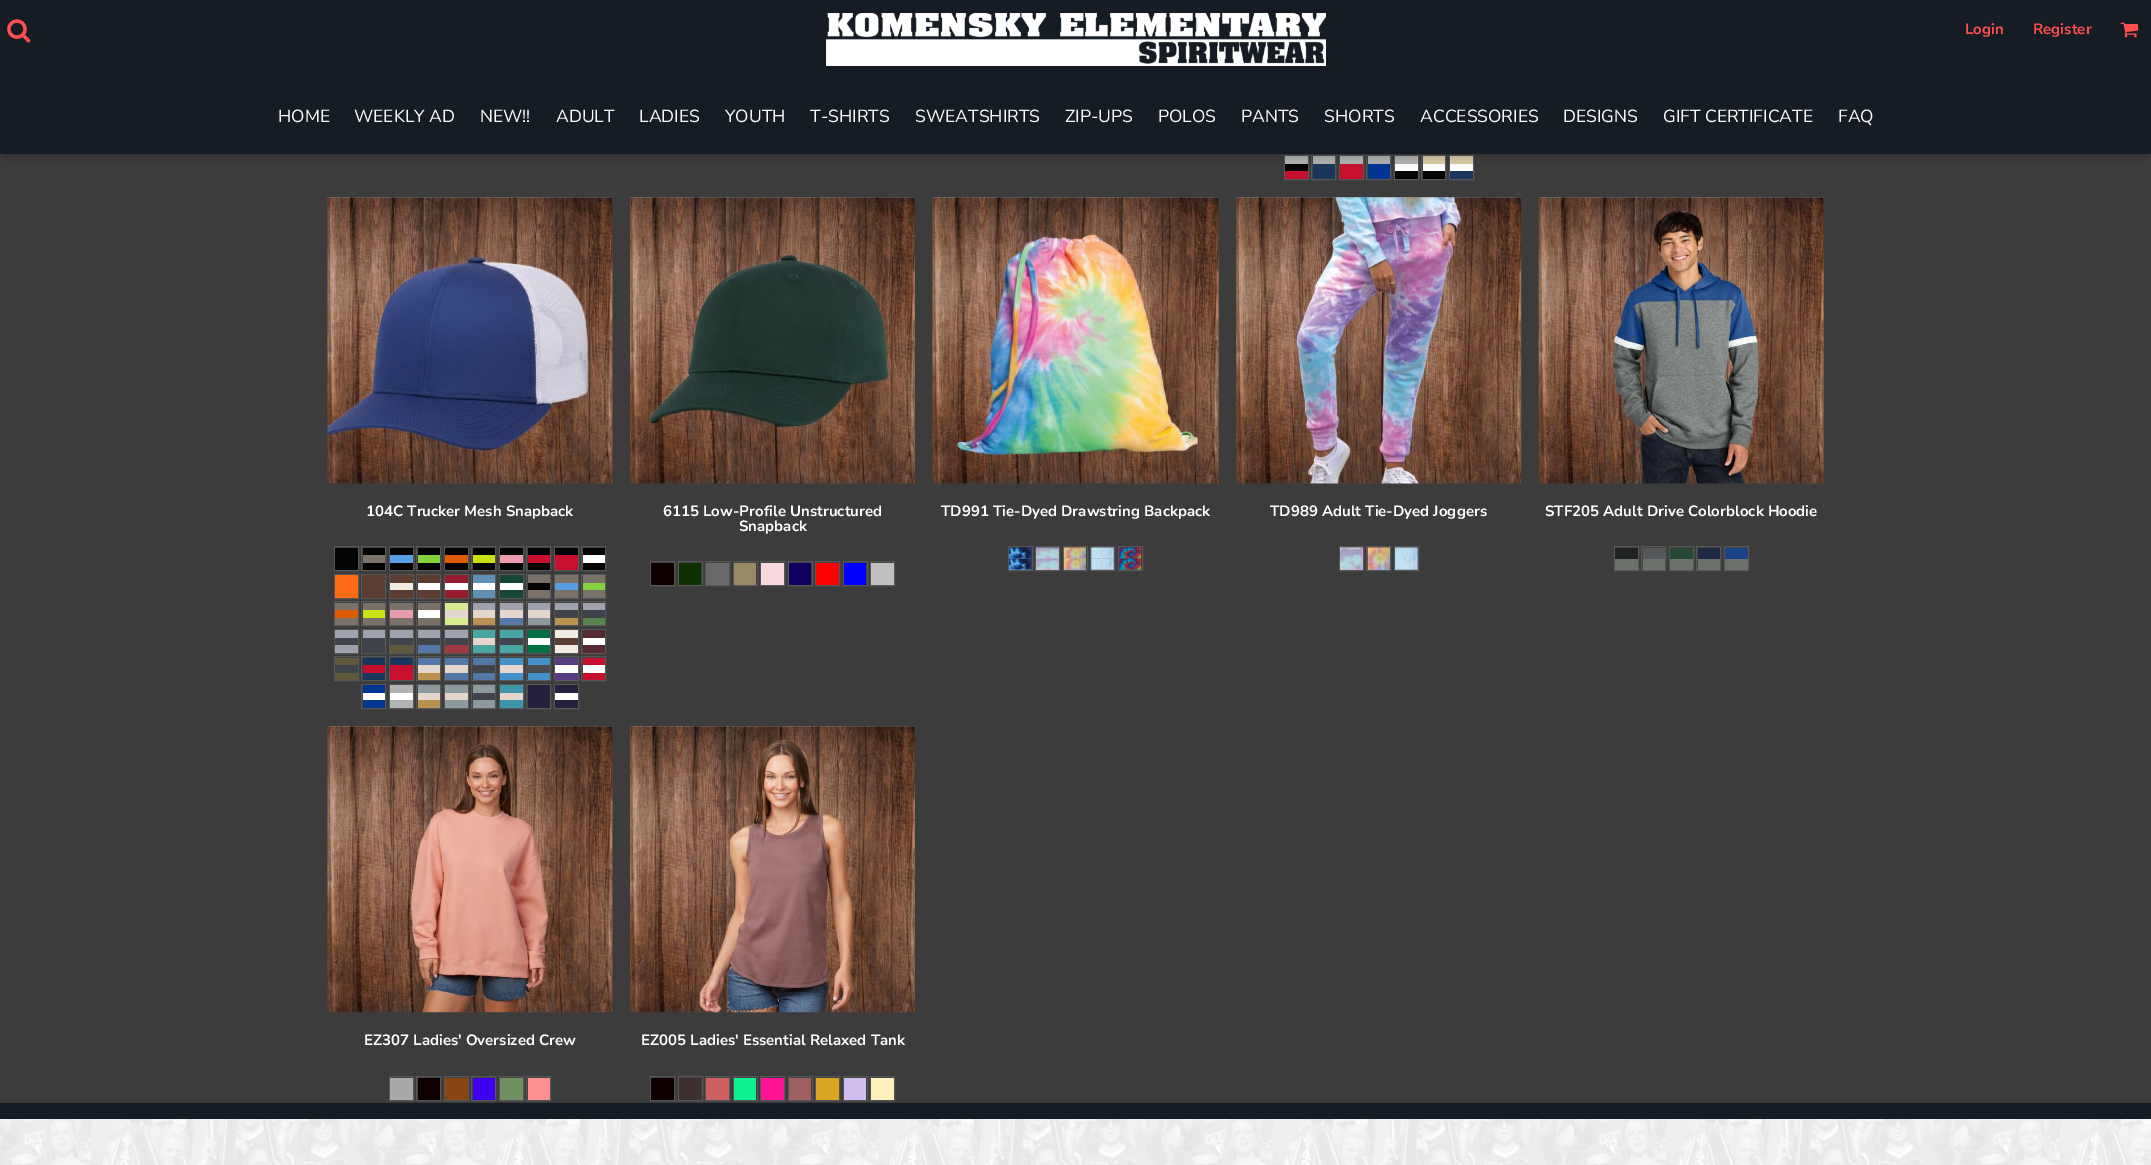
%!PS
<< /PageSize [2151 1165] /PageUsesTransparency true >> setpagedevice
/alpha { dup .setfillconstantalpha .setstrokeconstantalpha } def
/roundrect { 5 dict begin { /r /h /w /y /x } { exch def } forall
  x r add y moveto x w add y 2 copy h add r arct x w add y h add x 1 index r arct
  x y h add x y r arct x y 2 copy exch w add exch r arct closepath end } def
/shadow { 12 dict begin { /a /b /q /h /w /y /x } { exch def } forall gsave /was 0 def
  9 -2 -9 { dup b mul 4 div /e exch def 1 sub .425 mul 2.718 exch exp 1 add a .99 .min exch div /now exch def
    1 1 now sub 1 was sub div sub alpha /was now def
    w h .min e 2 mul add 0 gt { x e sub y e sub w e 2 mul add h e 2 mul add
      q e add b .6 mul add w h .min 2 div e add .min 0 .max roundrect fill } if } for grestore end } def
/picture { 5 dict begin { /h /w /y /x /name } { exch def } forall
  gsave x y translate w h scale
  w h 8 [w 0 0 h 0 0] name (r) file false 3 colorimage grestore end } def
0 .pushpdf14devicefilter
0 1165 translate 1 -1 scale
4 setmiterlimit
0.235 setgray
0 0 2151 1165 rectfill
0.337 setgray
1284.5 155.5 24 24 rectstroke
0.694 0.702 0.702 setrgbcolor
1285 156 23 8 rectfill
0.02 0.016 0.02 setrgbcolor
1285 164 23 7 rectfill
0.784 0.063 0.18 setrgbcolor
1285 171 23 8 rectfill
0.337 setgray
1311.5 155.5 24 24 rectstroke
0.694 0.702 0.702 setrgbcolor
1313 156 22 8 rectfill
0.106 0.212 0.365 setrgbcolor
1313 164 22 15 rectfill
0.337 setgray
1339.5 155.5 24 24 rectstroke
0.694 0.702 0.702 setrgbcolor
1340 156 23 8 rectfill
0.784 0.063 0.18 setrgbcolor
1340 164 23 15 rectfill
0.337 setgray
1366.5 155.5 24 24 rectstroke
0.694 0.702 0.702 setrgbcolor
1368 156 22 8 rectfill
0 0.208 0.58 setrgbcolor
1368 164 22 15 rectfill
0.337 setgray
1394.5 155.5 24 24 rectstroke
0.694 0.702 0.702 setrgbcolor
1395 156 23 8 rectfill
1 setgray
1395 164 23 7 rectfill
0.02 0.016 0.02 setrgbcolor
1395 171 23 8 rectfill
0.337 setgray
1421.5 155.5 24 24 rectstroke
0.863 0.804 0.651 setrgbcolor
1423 156 22 8 rectfill
1 setgray
1423 164 22 7 rectfill
0.02 0.016 0.02 setrgbcolor
1423 171 22 8 rectfill
0.337 setgray
1449.5 155.5 24 24 rectstroke
0.863 0.804 0.651 setrgbcolor
1450 156 23 8 rectfill
1 setgray
1450 164 23 7 rectfill
0.106 0.212 0.365 setrgbcolor
1450 171 23 8 rectfill
0 setgray
4 13 2141 143 0 6 0.25 shadow
0.086 0.11 0.137 setrgbcolor
0 0 2151 154 rectfill
(img1.rgb) 7 19 24 24 picture
(img2.rgb) 826 13 500 53 picture
/NunitoSans-ExtraLight [15 0 0 -15 0 0] selectfont
1 0.31 0.306 setrgbcolor
1965 34 moveto (Login) show
2033 34 moveto (Register) show
(img3.rgb) 2120 22 19 16 picture
/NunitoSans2-ExtraLight [17.5 0 0 -17.5 0 0] selectfont
1 setgray
278 122 moveto (HOME) show
354 122 moveto (WEEKLY AD) show
480 122 moveto (NEW!!) show
556 122 moveto (ADULT) show
639 122 moveto (LADIES) show
725 122 moveto (YOUTH) show
810 122 moveto (T-SHIRTS) show
915 122 moveto (SWEATSHIRTS) show
1065 122 moveto (ZIP-UPS) show
1158 122 moveto (POLOS) show
1241 122 moveto (PANTS) show
1324 122 moveto (SHORTS) show
1420 122 moveto (ACCESSORIES) show
1563 122 moveto (DESIGNS) show
1663 122 moveto (GIFT CERTIFICATE) show
1838 122 moveto (FAQ) show
(img4.rgb) 327 197 286 287 picture
/NunitoSans-ExtraLight [15 0 0 -15 0 0] selectfont
366 516 moveto (104C Trucker Mesh Snapback) show
0.337 setgray
334.5 546.5 24 24 rectstroke
0.02 0.016 0.02 setrgbcolor
335 548 23 22 rectfill
0.337 setgray
361.5 546.5 24 24 rectstroke
0.02 0.016 0.02 setrgbcolor
363 548 22 7 rectfill
0.478 0.443 0.408 setrgbcolor
363 555 22 8 rectfill
0.02 0.016 0.02 setrgbcolor
363 563 22 7 rectfill
0.337 setgray
389.5 546.5 24 24 rectstroke
0.02 0.016 0.02 setrgbcolor
390 548 23 7 rectfill
0.349 0.616 0.886 setrgbcolor
390 555 23 8 rectfill
0.02 0.016 0.02 setrgbcolor
390 563 23 7 rectfill
0.337 setgray
416.5 546.5 24 24 rectstroke
0.02 0.016 0.02 setrgbcolor
418 548 22 7 rectfill
0.518 0.82 0.231 setrgbcolor
418 555 22 8 rectfill
0.02 0.016 0.02 setrgbcolor
418 563 22 7 rectfill
0.337 setgray
444.5 546.5 24 24 rectstroke
0.02 0.016 0.02 setrgbcolor
445 548 23 7 rectfill
0.878 0.361 0.016 setrgbcolor
445 555 23 8 rectfill
0.02 0.016 0.02 setrgbcolor
445 563 23 7 rectfill
0.337 setgray
471.5 546.5 24 24 rectstroke
0.02 0.016 0.02 setrgbcolor
473 548 22 7 rectfill
0.78 0.882 0.071 setrgbcolor
473 555 22 8 rectfill
0.02 0.016 0.02 setrgbcolor
473 563 22 7 rectfill
0.337 setgray
499.5 546.5 24 24 rectstroke
0.02 0.016 0.02 setrgbcolor
500 548 23 7 rectfill
0.91 0.612 0.682 setrgbcolor
500 555 23 8 rectfill
0.02 0.016 0.02 setrgbcolor
500 563 23 7 rectfill
0.337 setgray
526.5 546.5 24 24 rectstroke
0.02 0.016 0.02 setrgbcolor
528 548 22 7 rectfill
0.784 0.063 0.18 setrgbcolor
528 555 22 8 rectfill
0.02 0.016 0.02 setrgbcolor
528 563 22 7 rectfill
0.337 setgray
554.5 546.5 24 24 rectstroke
0.02 0.016 0.02 setrgbcolor
555 548 23 7 rectfill
0.784 0.063 0.18 setrgbcolor
555 555 23 15 rectfill
0.337 setgray
581.5 546.5 24 24 rectstroke
0.02 0.016 0.02 setrgbcolor
583 548 22 7 rectfill
1 setgray
583 555 22 8 rectfill
0.02 0.016 0.02 setrgbcolor
583 563 22 7 rectfill
0.337 setgray
334.5 574.5 24 24 rectstroke
1 0.416 0.078 setrgbcolor
335 575 23 23 rectfill
0.337 setgray
361.5 574.5 24 24 rectstroke
0.361 0.239 0.192 setrgbcolor
363 575 22 23 rectfill
0.337 setgray
389.5 574.5 24 24 rectstroke
0.361 0.239 0.192 setrgbcolor
390 575 23 8 rectfill
0.945 0.922 0.882 setrgbcolor
390 583 23 7 rectfill
0.361 0.239 0.192 setrgbcolor
390 590 23 8 rectfill
0.337 setgray
416.5 574.5 24 24 rectstroke
0.361 0.239 0.192 setrgbcolor
418 575 22 8 rectfill
1 setgray
418 583 22 7 rectfill
0.361 0.239 0.192 setrgbcolor
418 590 22 8 rectfill
0.337 setgray
444.5 574.5 24 24 rectstroke
0.592 0.106 0.184 setrgbcolor
445 575 23 8 rectfill
1 setgray
445 583 23 7 rectfill
0.592 0.106 0.184 setrgbcolor
445 590 23 8 rectfill
0.337 setgray
471.5 574.5 24 24 rectstroke
0.373 0.561 0.706 setrgbcolor
473 575 22 8 rectfill
1 setgray
473 583 22 7 rectfill
0.373 0.561 0.706 setrgbcolor
473 590 22 8 rectfill
0.337 setgray
499.5 574.5 24 24 rectstroke
0.082 0.278 0.204 setrgbcolor
500 575 23 8 rectfill
1 setgray
500 583 23 7 rectfill
0.082 0.278 0.204 setrgbcolor
500 590 23 8 rectfill
0.337 setgray
526.5 574.5 24 24 rectstroke
0.478 0.443 0.408 setrgbcolor
528 575 22 8 rectfill
0.02 0.016 0.02 setrgbcolor
528 583 22 7 rectfill
0.478 0.443 0.408 setrgbcolor
528 590 22 8 rectfill
0.337 setgray
554.5 574.5 24 24 rectstroke
0.478 0.443 0.408 setrgbcolor
555 575 23 8 rectfill
0.349 0.616 0.886 setrgbcolor
555 583 23 7 rectfill
0.478 0.443 0.408 setrgbcolor
555 590 23 8 rectfill
0.337 setgray
581.5 574.5 24 24 rectstroke
0.478 0.443 0.408 setrgbcolor
583 575 22 8 rectfill
0.518 0.82 0.231 setrgbcolor
583 583 22 7 rectfill
0.478 0.443 0.408 setrgbcolor
583 590 22 8 rectfill
0.337 setgray
334.5 601.5 24 24 rectstroke
0.478 0.443 0.408 setrgbcolor
335 603 23 7 rectfill
0.878 0.361 0.016 setrgbcolor
335 610 23 8 rectfill
0.478 0.443 0.408 setrgbcolor
335 618 23 7 rectfill
0.337 setgray
361.5 601.5 24 24 rectstroke
0.478 0.443 0.408 setrgbcolor
363 603 22 7 rectfill
0.78 0.882 0.071 setrgbcolor
363 610 22 8 rectfill
0.478 0.443 0.408 setrgbcolor
363 618 22 7 rectfill
0.337 setgray
389.5 601.5 24 24 rectstroke
0.478 0.443 0.408 setrgbcolor
390 603 23 7 rectfill
0.91 0.612 0.682 setrgbcolor
390 610 23 8 rectfill
0.478 0.443 0.408 setrgbcolor
390 618 23 7 rectfill
0.337 setgray
416.5 601.5 24 24 rectstroke
0.478 0.443 0.408 setrgbcolor
418 603 22 7 rectfill
1 setgray
418 610 22 8 rectfill
0.478 0.443 0.408 setrgbcolor
418 618 22 7 rectfill
0.337 setgray
444.5 601.5 24 24 rectstroke
0.851 0.922 0.569 setrgbcolor
445 603 23 7 rectfill
0.894 0.839 0.804 setrgbcolor
445 610 23 8 rectfill
0.851 0.922 0.569 setrgbcolor
445 618 23 7 rectfill
0.337 setgray
471.5 601.5 24 24 rectstroke
0.624 0.635 0.678 setrgbcolor
473 603 22 7 rectfill
0.894 0.839 0.804 setrgbcolor
473 610 22 8 rectfill
0.725 0.573 0.322 setrgbcolor
473 618 22 7 rectfill
0.337 setgray
499.5 601.5 24 24 rectstroke
0.624 0.635 0.678 setrgbcolor
500 603 23 7 rectfill
0.894 0.839 0.804 setrgbcolor
500 610 23 8 rectfill
0.325 0.467 0.651 setrgbcolor
500 618 23 7 rectfill
0.337 setgray
526.5 601.5 24 24 rectstroke
0.624 0.635 0.678 setrgbcolor
528 603 22 7 rectfill
0.894 0.839 0.804 setrgbcolor
528 610 22 8 rectfill
0.549 0.604 0.616 setrgbcolor
528 618 22 7 rectfill
0.337 setgray
554.5 601.5 24 24 rectstroke
0.624 0.635 0.678 setrgbcolor
555 603 23 7 rectfill
0.251 0.263 0.29 setrgbcolor
555 610 23 8 rectfill
0.725 0.573 0.322 setrgbcolor
555 618 23 7 rectfill
0.337 setgray
581.5 601.5 24 24 rectstroke
0.624 0.635 0.678 setrgbcolor
583 603 22 7 rectfill
0.251 0.263 0.29 setrgbcolor
583 610 22 8 rectfill
0.345 0.51 0.306 setrgbcolor
583 618 22 7 rectfill
0.337 setgray
334.5 629.5 24 24 rectstroke
0.624 0.635 0.678 setrgbcolor
335 630 23 8 rectfill
0.251 0.263 0.29 setrgbcolor
335 638 23 7 rectfill
0.624 0.635 0.678 setrgbcolor
335 645 23 8 rectfill
0.337 setgray
361.5 629.5 24 24 rectstroke
0.624 0.635 0.678 setrgbcolor
363 630 22 8 rectfill
0.251 0.263 0.29 setrgbcolor
363 638 22 15 rectfill
0.337 setgray
389.5 629.5 24 24 rectstroke
0.624 0.635 0.678 setrgbcolor
390 630 23 8 rectfill
0.251 0.263 0.29 setrgbcolor
390 638 23 7 rectfill
0.373 0.349 0.239 setrgbcolor
390 645 23 8 rectfill
0.337 setgray
416.5 629.5 24 24 rectstroke
0.624 0.635 0.678 setrgbcolor
418 630 22 8 rectfill
0.251 0.263 0.29 setrgbcolor
418 638 22 7 rectfill
0.325 0.467 0.651 setrgbcolor
418 645 22 8 rectfill
0.337 setgray
444.5 629.5 24 24 rectstroke
0.624 0.635 0.678 setrgbcolor
445 630 23 8 rectfill
0.251 0.263 0.29 setrgbcolor
445 638 23 7 rectfill
0.627 0.22 0.247 setrgbcolor
445 645 23 8 rectfill
0.337 setgray
471.5 629.5 24 24 rectstroke
0.286 0.651 0.639 setrgbcolor
473 630 22 8 rectfill
0.894 0.839 0.804 setrgbcolor
473 638 22 7 rectfill
0.286 0.651 0.639 setrgbcolor
473 645 22 8 rectfill
0.337 setgray
499.5 629.5 24 24 rectstroke
0.286 0.651 0.639 setrgbcolor
500 630 23 8 rectfill
0.251 0.263 0.29 setrgbcolor
500 638 23 7 rectfill
0.286 0.651 0.639 setrgbcolor
500 645 23 8 rectfill
0.337 setgray
526.5 629.5 24 24 rectstroke
0 0.435 0.267 setrgbcolor
528 630 22 8 rectfill
1 setgray
528 638 22 7 rectfill
0 0.435 0.267 setrgbcolor
528 645 22 8 rectfill
0.337 setgray
554.5 629.5 24 24 rectstroke
0.945 0.922 0.882 setrgbcolor
555 630 23 8 rectfill
0.361 0.239 0.192 setrgbcolor
555 638 23 7 rectfill
0.945 0.922 0.882 setrgbcolor
555 645 23 8 rectfill
0.337 setgray
581.5 629.5 24 24 rectstroke
0.341 0.161 0.196 setrgbcolor
583 630 22 8 rectfill
1 setgray
583 638 22 7 rectfill
0.341 0.161 0.196 setrgbcolor
583 645 22 8 rectfill
0.337 setgray
334.5 656.5 24 24 rectstroke
0.373 0.349 0.239 setrgbcolor
335 658 23 7 rectfill
0.251 0.263 0.29 setrgbcolor
335 665 23 8 rectfill
0.373 0.349 0.239 setrgbcolor
335 673 23 7 rectfill
0.337 setgray
361.5 656.5 24 24 rectstroke
0.106 0.212 0.365 setrgbcolor
363 658 22 7 rectfill
0.784 0.063 0.18 setrgbcolor
363 665 22 8 rectfill
0.106 0.212 0.365 setrgbcolor
363 673 22 7 rectfill
0.337 setgray
389.5 656.5 24 24 rectstroke
0.106 0.212 0.365 setrgbcolor
390 658 23 7 rectfill
0.784 0.063 0.18 setrgbcolor
390 665 23 15 rectfill
0.337 setgray
416.5 656.5 24 24 rectstroke
0.325 0.467 0.651 setrgbcolor
418 658 22 7 rectfill
0.894 0.839 0.804 setrgbcolor
418 665 22 8 rectfill
0.725 0.573 0.322 setrgbcolor
418 673 22 7 rectfill
0.337 setgray
444.5 656.5 24 24 rectstroke
0.325 0.467 0.651 setrgbcolor
445 658 23 7 rectfill
0.894 0.839 0.804 setrgbcolor
445 665 23 8 rectfill
0.325 0.467 0.651 setrgbcolor
445 673 23 7 rectfill
0.337 setgray
471.5 656.5 24 24 rectstroke
0.325 0.467 0.651 setrgbcolor
473 658 22 7 rectfill
0.251 0.263 0.29 setrgbcolor
473 665 22 8 rectfill
0.325 0.467 0.651 setrgbcolor
473 673 22 7 rectfill
0.337 setgray
499.5 656.5 24 24 rectstroke
0.267 0.569 0.788 setrgbcolor
500 658 23 7 rectfill
0.894 0.839 0.804 setrgbcolor
500 665 23 8 rectfill
0.267 0.569 0.788 setrgbcolor
500 673 23 7 rectfill
0.337 setgray
526.5 656.5 24 24 rectstroke
0.267 0.569 0.788 setrgbcolor
528 658 22 7 rectfill
0.294 0.298 0.31 setrgbcolor
528 665 22 8 rectfill
0.267 0.569 0.788 setrgbcolor
528 673 22 7 rectfill
0.337 setgray
554.5 656.5 24 24 rectstroke
0.337 0.239 0.51 setrgbcolor
555 658 23 7 rectfill
1 setgray
555 665 23 8 rectfill
0.337 0.239 0.51 setrgbcolor
555 673 23 7 rectfill
0.337 setgray
581.5 656.5 24 24 rectstroke
0.784 0.063 0.18 setrgbcolor
583 658 22 7 rectfill
1 setgray
583 665 22 8 rectfill
0.784 0.063 0.18 setrgbcolor
583 673 22 7 rectfill
0.337 setgray
361.5 684.5 24 24 rectstroke
0 0.208 0.58 setrgbcolor
363 685 22 8 rectfill
1 setgray
363 693 22 7 rectfill
0 0.208 0.58 setrgbcolor
363 700 22 8 rectfill
0.337 setgray
389.5 684.5 24 24 rectstroke
0.694 0.702 0.702 setrgbcolor
390 685 23 8 rectfill
1 setgray
390 693 23 7 rectfill
0.694 0.702 0.702 setrgbcolor
390 700 23 8 rectfill
0.337 setgray
416.5 684.5 24 24 rectstroke
0.549 0.604 0.616 setrgbcolor
418 685 22 8 rectfill
0.894 0.839 0.804 setrgbcolor
418 693 22 7 rectfill
0.725 0.573 0.322 setrgbcolor
418 700 22 8 rectfill
0.337 setgray
444.5 684.5 24 24 rectstroke
0.549 0.604 0.616 setrgbcolor
445 685 23 8 rectfill
0.894 0.839 0.804 setrgbcolor
445 693 23 7 rectfill
0.549 0.604 0.616 setrgbcolor
445 700 23 8 rectfill
0.337 setgray
471.5 684.5 24 24 rectstroke
0.549 0.604 0.616 setrgbcolor
473 685 22 8 rectfill
0.251 0.263 0.29 setrgbcolor
473 693 22 7 rectfill
0.549 0.604 0.616 setrgbcolor
473 700 22 8 rectfill
0.337 setgray
499.5 684.5 24 24 rectstroke
0.247 0.588 0.671 setrgbcolor
500 685 23 8 rectfill
0.894 0.839 0.804 setrgbcolor
500 693 23 7 rectfill
0.247 0.588 0.671 setrgbcolor
500 700 23 8 rectfill
0.337 setgray
526.5 684.5 24 24 rectstroke
0.141 0.129 0.243 setrgbcolor
528 685 22 23 rectfill
0.337 setgray
554.5 684.5 24 24 rectstroke
0.141 0.129 0.243 setrgbcolor
555 685 23 8 rectfill
1 setgray
555 693 23 7 rectfill
0.141 0.129 0.243 setrgbcolor
555 700 23 8 rectfill
(img5.rgb) 630 197 285 287 picture
1 setgray
663 516 moveto (6115 Low-Profile Unstructured) show
739 531 moveto (Snapback) show
0.337 setgray
650.5 561.5 24 24 rectstroke
0.059 0 0 setrgbcolor
651 563 23 22 rectfill
0.337 setgray
678.5 561.5 24 24 rectstroke
0.059 0.188 0 setrgbcolor
679 563 22 22 rectfill
0.337 setgray
705.5 561.5 24 24 rectstroke
0.412 setgray
706 563 23 22 rectfill
0.337 setgray
733.5 561.5 24 24 rectstroke
0.592 0.541 0.392 setrgbcolor
734 563 22 22 rectfill
0.337 setgray
760.5 561.5 24 24 rectstroke
0.973 0.851 0.875 setrgbcolor
761 563 23 22 rectfill
0.337 setgray
788.5 561.5 24 24 rectstroke
0.059 0 0.376 setrgbcolor
789 563 22 22 rectfill
0.337 setgray
815.5 561.5 24 24 rectstroke
1 0 0 setrgbcolor
816 563 23 22 rectfill
0.337 setgray
843.5 561.5 24 24 rectstroke
0 0 1 setrgbcolor
844 563 22 22 rectfill
0.337 setgray
870.5 561.5 24 24 rectstroke
0.753 setgray
871 563 23 22 rectfill
(img6.rgb) 932 197 287 287 picture
1 setgray
941 516 moveto (TD991 Tie-Dyed Drawstring Backpack) show
0.337 setgray
1008.5 546.5 24 24 rectstroke
(img7.rgb) 1008 547 24 12 picture
0.396 0.725 0.91 setrgbcolor
1009 569 22 1 rectfill
(img8.rgb) 1008 558 24 12 picture
0.337 setgray
1035.5 546.5 24 24 rectstroke
0.886 0.631 0.835 setrgbcolor
1036 548 23 22 rectfill
(img9.rgb) 1036 547 23 12 picture
(img10.rgb) 1036 558 23 12 picture
0.337 setgray
1063.5 546.5 24 24 rectstroke
(img11.rgb) 1063 547 24 12 picture
0.408 0.769 0.98 setrgbcolor
1064 569 22 1 rectfill
(img12.rgb) 1063 558 24 12 picture
0.337 setgray
1090.5 546.5 24 24 rectstroke
0.451 0.561 0.686 setrgbcolor
1091 548 23 22 rectfill
(img13.rgb) 1091 547 23 12 picture
(img14.rgb) 1091 558 23 12 picture
0.337 setgray
1118.5 546.5 24 24 rectstroke
(img15.rgb) 1119 547 23 12 picture
0.008 0.529 0.353 setrgbcolor
1119 569 22 1 rectfill
(img16.rgb) 1118 558 24 12 picture
(img17.rgb) 1236 197 286 287 picture
1 setgray
1270 516 moveto (TD989 Adult Tie-Dyed Joggers) show
0.337 setgray
1339.5 546.5 24 24 rectstroke
0.886 0.631 0.835 setrgbcolor
1340 548 23 22 rectfill
(img18.rgb) 1340 547 23 23 picture
0.337 setgray
1366.5 546.5 24 24 rectstroke
0.408 0.769 0.98 setrgbcolor
1368 569 22 1 rectfill
(img19.rgb) 1367 547 23 23 picture
0.337 setgray
1394.5 546.5 24 24 rectstroke
0.451 0.561 0.686 setrgbcolor
1395 548 23 22 rectfill
(img20.rgb) 1395 547 23 23 picture
(img21.rgb) 1538 197 286 287 picture
1 setgray
1545 516 moveto (STF205 Adult Drive Colorblock Hoodie) show
0.337 setgray
1614.5 546.5 24 24 rectstroke
0.125 0.133 0.129 setrgbcolor
1615 548 23 11 rectfill
0.424 0.443 0.42 setrgbcolor
1615 559 23 11 rectfill
0.337 setgray
1641.5 546.5 24 24 rectstroke
0.325 0.341 0.349 setrgbcolor
1643 548 22 11 rectfill
0.424 0.443 0.42 setrgbcolor
1643 559 22 11 rectfill
0.337 setgray
1669.5 546.5 24 24 rectstroke
0.153 0.278 0.204 setrgbcolor
1670 548 23 11 rectfill
0.424 0.443 0.42 setrgbcolor
1670 559 23 11 rectfill
0.337 setgray
1696.5 546.5 24 24 rectstroke
0.118 0.161 0.267 setrgbcolor
1698 548 22 11 rectfill
0.424 0.443 0.42 setrgbcolor
1698 559 22 11 rectfill
0.337 setgray
1724.5 546.5 24 24 rectstroke
0.11 0.259 0.537 setrgbcolor
1725 548 23 11 rectfill
0.424 0.443 0.42 setrgbcolor
1725 559 23 11 rectfill
(img22.rgb) 327 726 286 287 picture
1 setgray
364 1045 moveto (EZ307 Ladies' Oversized Crew) show
0.337 setgray
389.5 1076.5 24 24 rectstroke
0.663 setgray
390 1078 23 22 rectfill
0.337 setgray
416.5 1076.5 24 24 rectstroke
0.059 0 0 setrgbcolor
418 1078 22 22 rectfill
0.337 setgray
444.5 1076.5 24 24 rectstroke
0.545 0.271 0.075 setrgbcolor
445 1078 23 22 rectfill
0.337 setgray
471.5 1076.5 24 24 rectstroke
0.247 0 0.941 setrgbcolor
473 1078 22 22 rectfill
0.337 setgray
499.5 1076.5 24 24 rectstroke
0.435 0.565 0.376 setrgbcolor
500 1078 23 22 rectfill
0.337 setgray
526.5 1076.5 24 24 rectstroke
1 0.565 0.565 setrgbcolor
528 1078 22 22 rectfill
(img23.rgb) 630 726 285 287 picture
1 setgray
641 1045 moveto (EZ005 Ladies' Essential Relaxed Tank) show
0.337 setgray
650.5 1076.5 24 24 rectstroke
0.059 0 0 setrgbcolor
651 1078 23 22 rectfill
0.337 setgray
678.5 1076.5 24 24 rectstroke
0.247 0.188 0.188 setrgbcolor
679 1078 22 22 rectfill
0.337 setgray
705.5 1076.5 24 24 rectstroke
0.812 0.376 0.376 setrgbcolor
706 1078 23 22 rectfill
0.337 setgray
733.5 1076.5 24 24 rectstroke
0.059 0.941 0.565 setrgbcolor
734 1078 22 22 rectfill
0.337 setgray
760.5 1076.5 24 24 rectstroke
1 0.078 0.576 setrgbcolor
761 1078 23 22 rectfill
0.337 setgray
788.5 1076.5 24 24 rectstroke
0.624 0.376 0.376 setrgbcolor
789 1078 22 22 rectfill
0.337 setgray
815.5 1076.5 24 24 rectstroke
0.855 0.647 0.125 setrgbcolor
816 1078 23 22 rectfill
0.337 setgray
843.5 1076.5 24 24 rectstroke
0.812 0.753 0.941 setrgbcolor
844 1078 22 22 rectfill
0.337 setgray
870.5 1076.5 24 24 rectstroke
1 0.941 0.753 setrgbcolor
871 1078 23 22 rectfill
0.086 0.11 0.137 setrgbcolor
0 1103 2151 16 rectfill
1 setgray
0 1119 2151 46 rectfill
(img24.rgb) 0 1119 2151 46 picture
.poppdf14devicefilter showpage
